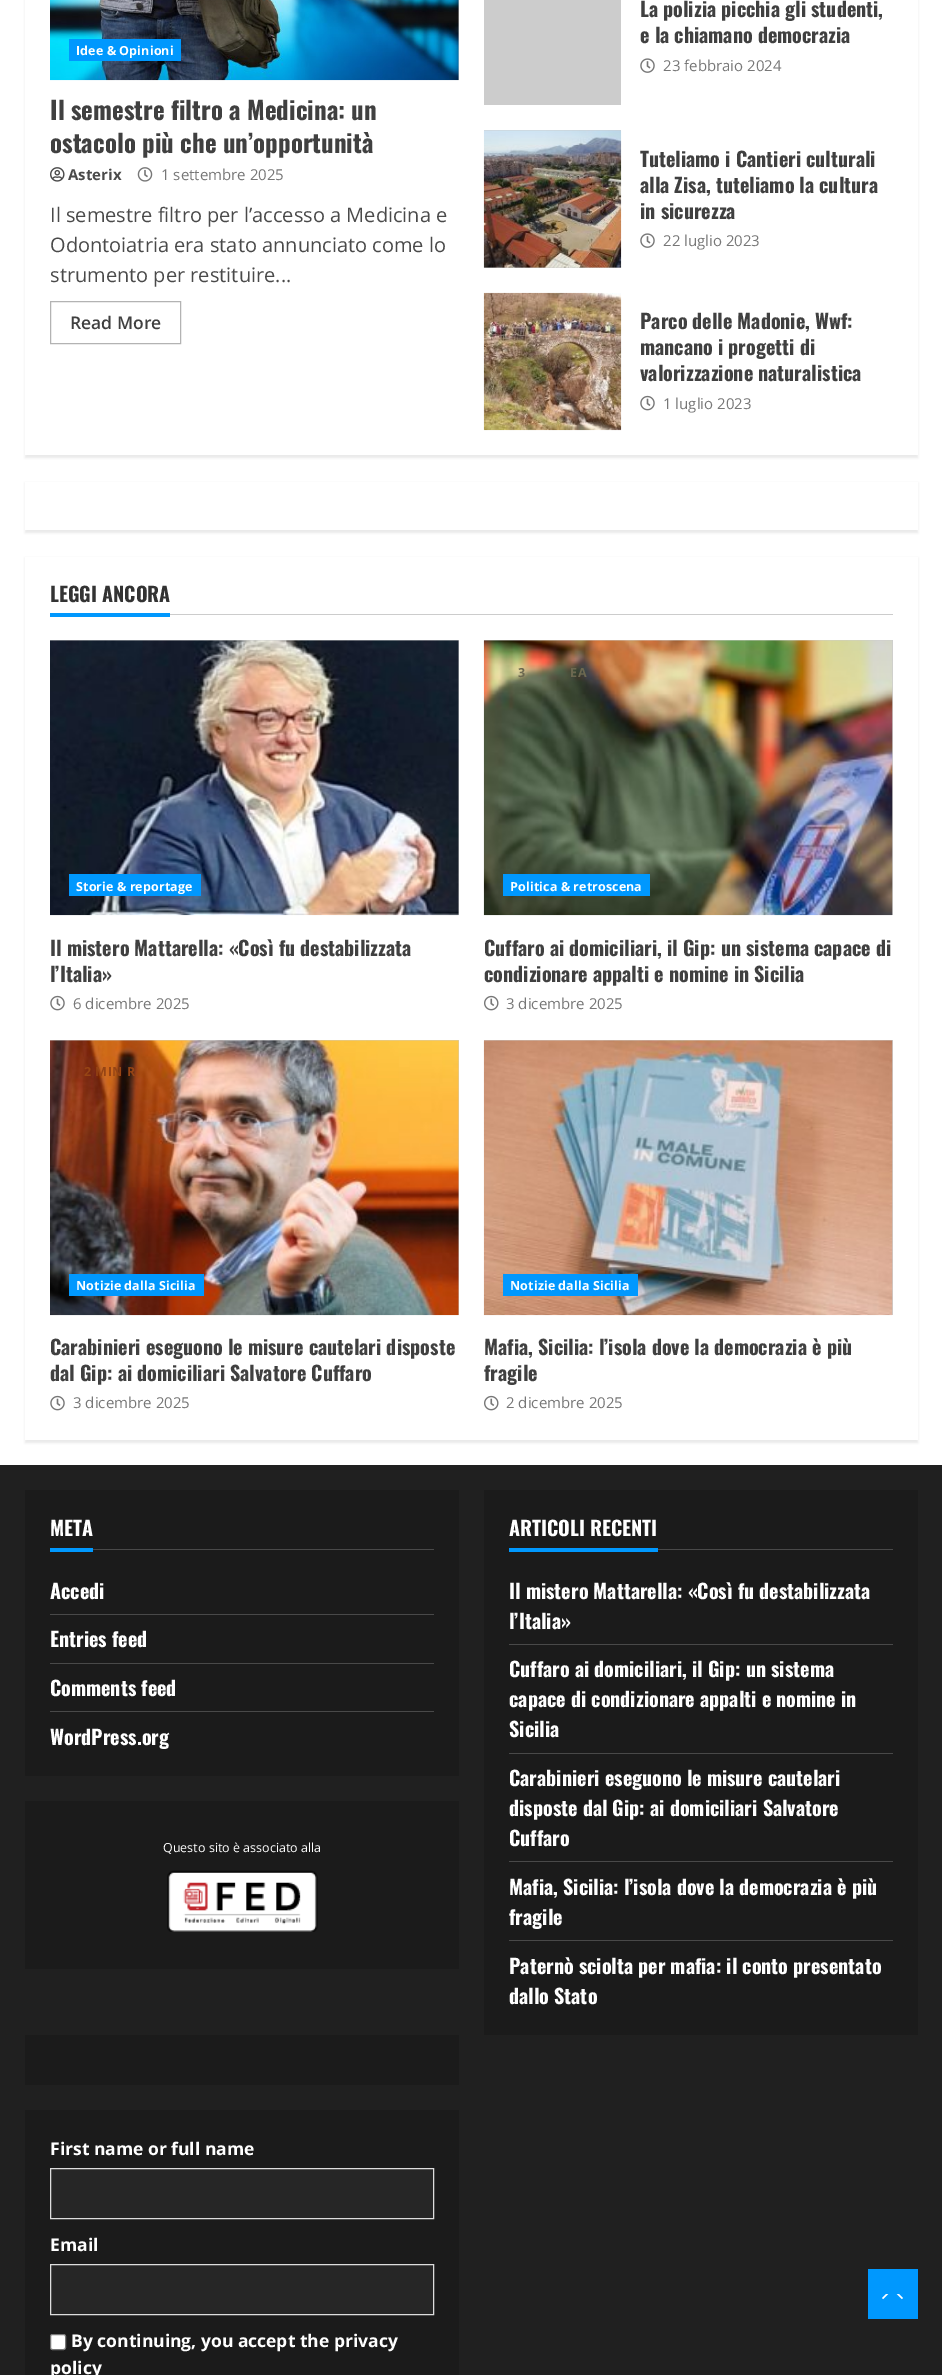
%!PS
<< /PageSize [942 2375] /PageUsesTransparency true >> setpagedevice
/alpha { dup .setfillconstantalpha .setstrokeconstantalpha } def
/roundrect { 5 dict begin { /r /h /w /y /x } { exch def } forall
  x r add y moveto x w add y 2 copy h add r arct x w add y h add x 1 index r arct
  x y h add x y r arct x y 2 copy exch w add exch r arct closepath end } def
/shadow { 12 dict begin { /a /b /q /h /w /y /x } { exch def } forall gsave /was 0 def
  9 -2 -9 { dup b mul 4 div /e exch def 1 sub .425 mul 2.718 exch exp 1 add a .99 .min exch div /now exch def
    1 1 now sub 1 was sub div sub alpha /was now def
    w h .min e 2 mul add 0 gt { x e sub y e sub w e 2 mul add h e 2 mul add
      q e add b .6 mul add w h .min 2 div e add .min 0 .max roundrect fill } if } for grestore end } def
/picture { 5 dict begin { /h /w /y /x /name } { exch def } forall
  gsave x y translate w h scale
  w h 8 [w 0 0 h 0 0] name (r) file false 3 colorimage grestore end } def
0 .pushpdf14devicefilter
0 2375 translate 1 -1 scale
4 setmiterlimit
1 setgray
0 0 942 2375 rectfill
0 setgray
25 -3 893 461 0 1 0.08 shadow
1 setgray
25 0 893 455 rectfill
0.8 setgray
484 0 137 105 rectfill
/Oswald-Bold [20 0 0 -20 0 0] selectfont
0.251 setgray
640 17 moveto (La polizia picchia gli studenti,) show
640 43 moveto (e la chiamano democrazia) show
(img1.rgb) 640 58 15 15 picture
/OpenSans-Regular [15 0 0 -15 0 0] selectfont
0.467 setgray
663 71 moveto (23 febbraio 2024) show
0.8 setgray
458 0 1 80 rectfill
(img2.rgb) 50 0 409 81 picture
0 0.596 0.996 setrgbcolor
69 39 112 22 rectfill
/OpenSans-Bold [12.5 0 0 -12.5 0 0] selectfont
1 setgray
76 55 moveto 0.1 0 (Idee & Opinioni) ashow
/Oswald-Bold [25 0 0 -25 0 0] selectfont
0.251 setgray
50 120 moveto (Il semestre filtro a Medicina: un) show
50 153 moveto (ostacolo più che un’opportunità) show
(img3.rgb) 50 167 15 15 picture
/OpenSans-Bold [15 0 0 -15 0 0] selectfont
0.29 setgray
68 180 moveto (Asterix) show
(img4.rgb) 137 167 16 15 picture
/OpenSans-Regular [15 0 0 -15 0 0] selectfont
0.467 setgray
161 180 moveto (1 settembre 2025) show
/OpenSans-Regular [20 0 0 -20 0 0] selectfont
0.29 setgray
50 222 moveto (Il semestre filtro per l’accesso a Medicina e) show
50 252 moveto (Odontoiatria era stato annunciato come lo) show
50 282 moveto (strumento per restituire...) show
0.702 setgray
50.5 301.5 130 42 rectstroke
/OpenSans-SemiBold [17.5 0 0 -17.5 0 0] selectfont
0.251 setgray
70 329 moveto (Read More) show
0.8 setgray
484 130 137 138 rectfill
(img5.rgb) 483 130 139 138 picture
/Oswald-Bold [20 0 0 -20 0 0] selectfont
0.251 setgray
640 167 moveto (Tuteliamo i Cantieri culturali) show
640 193 moveto (alla Zisa, tuteliamo la cultura) show
640 219 moveto (in sicurezza) show
(img1.rgb) 640 233 15 15 picture
/OpenSans-Regular [15 0 0 -15 0 0] selectfont
0.467 setgray
663 246 moveto (22 luglio 2023) show
(img6.rgb) 483 292 139 139 picture
/Oswald-Bold [20 0 0 -20 0 0] selectfont
0.251 setgray
640 329 moveto (Parco delle Madonie, Wwf:) show
640 355 moveto (mancano i progetti di) show
640 381 moveto (valorizzazione naturalistica) show
(img7.rgb) 640 395 15 16 picture
/OpenSans-Regular [15 0 0 -15 0 0] selectfont
0.467 setgray
663 409 moveto (1 luglio 2023) show
0 setgray
25 483 893 50 0 1 0.08 shadow
1 setgray
25 482 893 48 rectfill
0 setgray
25 558 893 885 0 1 0.08 shadow
1 setgray
25 557 893 883 rectfill
0.8 setgray
170 614 723 1 rectfill
/Oswald-Bold [20 0 0 -20 0 0] selectfont
0.2 setgray
50 602 moveto (LEGGI ANCORA) show
0 0.596 0.996 setrgbcolor
50 613 120 4 rectfill
0.8 setgray
50 640 409 275 rectfill
(img8.rgb) 50 640 409 276 picture
0 0.596 0.996 setrgbcolor
69 874 132 22 rectfill
/OpenSans-Bold [12.5 0 0 -12.5 0 0] selectfont
1 setgray
76 891 moveto 0.1 0 (Storie & reportage) ashow
/Oswald-Bold [20 0 0 -20 0 0] selectfont
0.251 setgray
50 956 moveto (Il mistero Mattarella: «Così fu destabilizzata) show
50 982 moveto (l’Italia») show
(img7.rgb) 50 995 15 16 picture
/OpenSans-Regular [15 0 0 -15 0 0] selectfont
0.467 setgray
73 1009 moveto (6 dicembre 2025) show
0.8 setgray
484 640 409 275 rectfill
(img9.rgb) 483 640 410 276 picture
/OpenSans-Bold [12.5 0 0 -12.5 0 0] selectfont
0.424 0.408 0.314 setrgbcolor
518 677 moveto 0.5 0 (3) ashow
570 677 moveto 0.5 0 (EA) ashow
0 0.596 0.996 setrgbcolor
503 874 147 22 rectfill
1 setgray
510 891 moveto 0.1 0 (Politica & retroscena) ashow
/Oswald-Bold [20 0 0 -20 0 0] selectfont
0.251 setgray
484 956 moveto (Cuffaro ai domiciliari, il Gip: un sistema capace di) show
484 982 moveto (condizionare appalti e nomine in Sicilia) show
(img10.rgb) 484 995 15 16 picture
/OpenSans-Regular [15 0 0 -15 0 0] selectfont
0.467 setgray
506 1009 moveto (3 dicembre 2025) show
0.8 setgray
50 1040 409 275 rectfill
(img11.rgb) 50 1040 409 276 picture
/OpenSans-Bold [12.5 0 0 -12.5 0 0] selectfont
0.588 0.267 0.078 setrgbcolor
84 1076 moveto 0.5 0 (2 MIN R) ashow
0 0.596 0.996 setrgbcolor
69 1274 135 22 rectfill
1 setgray
76 1290 moveto 0.1 0 (Notizie dalla Sicilia) ashow
/Oswald-Bold [20 0 0 -20 0 0] selectfont
0.251 setgray
50 1355 moveto (Carabinieri eseguono le misure cautelari disposte) show
50 1381 moveto (dal Gip: ai domiciliari Salvatore Cuffaro) show
(img7.rgb) 50 1395 15 16 picture
/OpenSans-Regular [15 0 0 -15 0 0] selectfont
0.467 setgray
73 1408 moveto (3 dicembre 2025) show
0.8 setgray
484 1040 409 275 rectfill
(img12.rgb) 483 1040 410 276 picture
0 0.596 0.996 setrgbcolor
503 1274 135 22 rectfill
/OpenSans-Bold [12.5 0 0 -12.5 0 0] selectfont
1 setgray
510 1290 moveto 0.1 0 (Notizie dalla Sicilia) ashow
/Oswald-Bold [20 0 0 -20 0 0] selectfont
0.251 setgray
484 1355 moveto (Mafia, Sicilia: l’isola dove la democrazia è più) show
484 1381 moveto (fragile) show
(img10.rgb) 484 1395 15 16 picture
/OpenSans-Regular [15 0 0 -15 0 0] selectfont
0.467 setgray
506 1408 moveto (2 dicembre 2025) show
0.125 setgray
0 1465 942 910 rectfill
0.106 setgray
25 1490 434 286 rectfill
0.286 setgray
93 1549 341 1 rectfill
/Oswald-Bold [20 0 0 -20 0 0] selectfont
1 setgray
50 1536 moveto (META) show
0 0.596 0.996 setrgbcolor
50 1548 43 4 rectfill
0.286 setgray
50 1614 384 1 rectfill
1 setgray
50 1599 moveto (Accedi) show
0.286 setgray
50 1663 384 1 rectfill
1 setgray
50 1647 moveto (Entries feed) show
0.286 setgray
50 1711 384 1 rectfill
1 setgray
50 1696 moveto (Comments feed) show
50 1745 moveto (WordPress.org) show
0.106 setgray
25 1801 434 168 rectfill
/OpenSans-Regular [12.5 0 0 -12.5 0 0] selectfont
1 setgray
163 1852 moveto (Questo sito è associato alla) show
(img13.rgb) 167 1870 151 62 picture
0.106 setgray
484 1490 434 545 rectfill
0.286 setgray
658 1549 235 1 rectfill
/Oswald-Bold [20 0 0 -20 0 0] selectfont
1 setgray
509 1536 moveto (ARTICOLI RECENTI) show
0 0.596 0.996 setrgbcolor
509 1548 149 4 rectfill
0.286 setgray
509 1644 384 1 rectfill
1 setgray
509 1599 moveto (Il mistero Mattarella: «Così fu destabilizzata) show
509 1629 moveto (l’Italia») show
0.286 setgray
509 1753 384 1 rectfill
1 setgray
509 1677 moveto (Cuffaro ai domiciliari, il Gip: un sistema) show
509 1707 moveto (capace di condizionare appalti e nomine in) show
509 1737 moveto (Sicilia) show
0.286 setgray
509 1861 384 1 rectfill
1 setgray
509 1786 moveto (Carabinieri eseguono le misure cautelari) show
509 1816 moveto (disposte dal Gip: ai domiciliari Salvatore) show
509 1846 moveto (Cuffaro) show
0.286 setgray
509 1940 384 1 rectfill
1 setgray
509 1895 moveto (Mafia, Sicilia: l’isola dove la democrazia è più) show
509 1925 moveto (fragile) show
509 1974 moveto (Paternò sciolta per mafia: il conto presentato) show
509 2004 moveto (dallo Stato) show
0.106 setgray
25 2035 434 50 rectfill
25 2110 434 265 rectfill
/OpenSans-Bold [17.5 0 0 -17.5 0 0] selectfont
1 setgray
50 2155 moveto (First name or full name) show
0.149 setgray
newpath 50.5 2168.5 moveto 433.5 2168.5 lineto 433.5 2218.5 lineto 50.5 2218.5 lineto closepath gsave fill grestore
0.867 setgray
stroke
1 setgray
50 2251 moveto (Email) show
0.149 setgray
newpath 50.5 2264.5 moveto 433.5 2264.5 lineto 433.5 2314.5 lineto 50.5 2314.5 lineto closepath gsave fill grestore
0.867 setgray
stroke
1 setgray
50.5 2334.5 15 15 2 roundrect gsave fill grestore
0.463 setgray
stroke
1 setgray
71 2347 moveto (By continuing, you accept the privacy) show
50 2374 moveto (policy) show
0 0.596 0.996 setrgbcolor
868 2269 50 50 rectfill
1 setgray
newpath 886 2300 moveto 899 2300 lineto 900.5 2300 902 2299 903 2298 curveto 899 2294 lineto 886 2294 lineto 882 2298 lineto 883 2299 884.5 2300 886 2300 curveto closepath fill
0 0.596 0.996 setrgbcolor
newpath 905 2302.5 moveto 880 2302.5 lineto 892.5 2290 lineto closepath fill
.poppdf14devicefilter showpage
